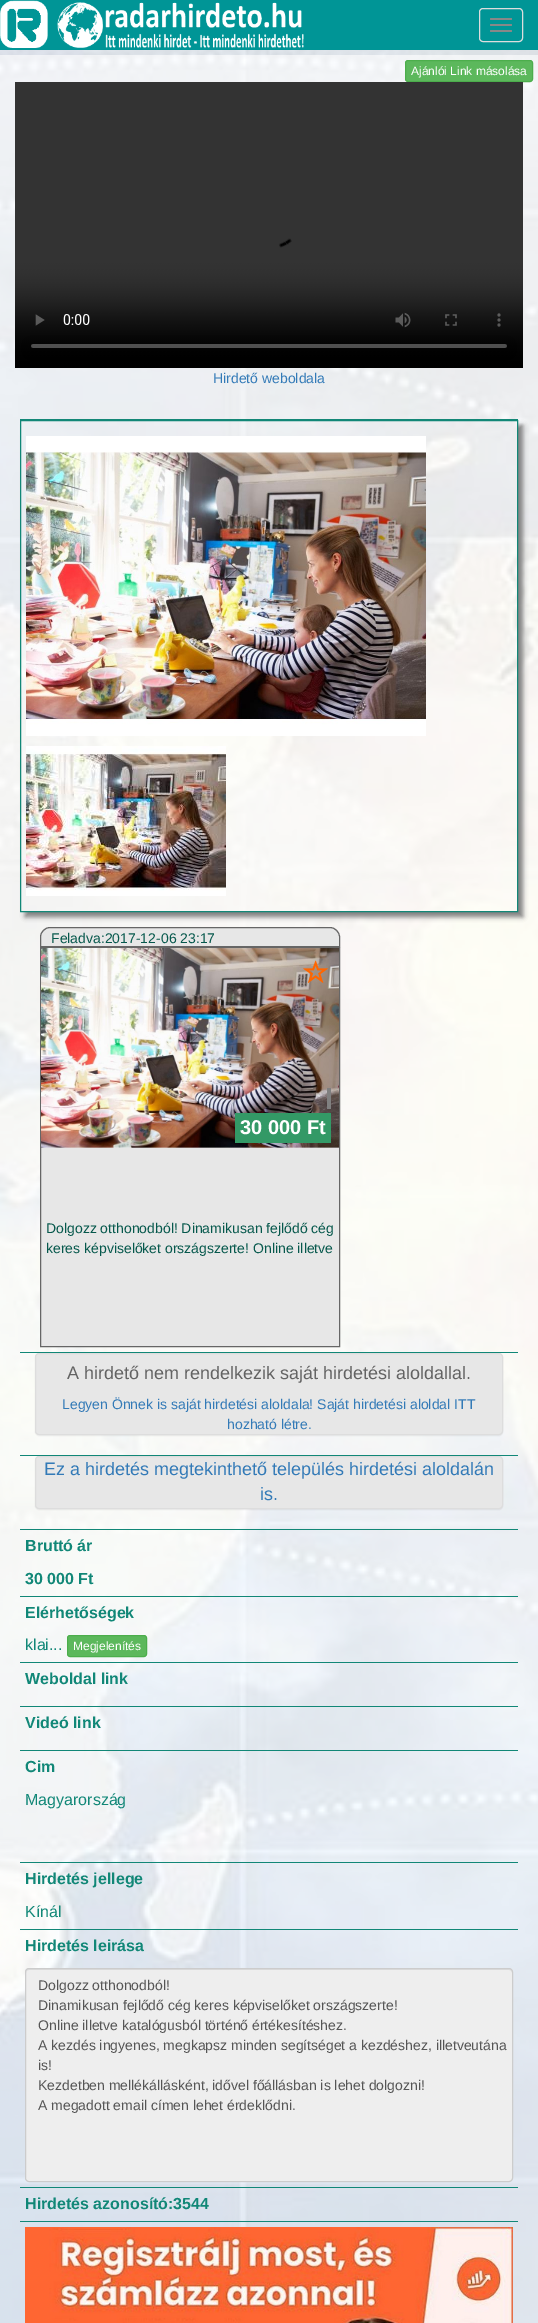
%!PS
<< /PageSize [538 2323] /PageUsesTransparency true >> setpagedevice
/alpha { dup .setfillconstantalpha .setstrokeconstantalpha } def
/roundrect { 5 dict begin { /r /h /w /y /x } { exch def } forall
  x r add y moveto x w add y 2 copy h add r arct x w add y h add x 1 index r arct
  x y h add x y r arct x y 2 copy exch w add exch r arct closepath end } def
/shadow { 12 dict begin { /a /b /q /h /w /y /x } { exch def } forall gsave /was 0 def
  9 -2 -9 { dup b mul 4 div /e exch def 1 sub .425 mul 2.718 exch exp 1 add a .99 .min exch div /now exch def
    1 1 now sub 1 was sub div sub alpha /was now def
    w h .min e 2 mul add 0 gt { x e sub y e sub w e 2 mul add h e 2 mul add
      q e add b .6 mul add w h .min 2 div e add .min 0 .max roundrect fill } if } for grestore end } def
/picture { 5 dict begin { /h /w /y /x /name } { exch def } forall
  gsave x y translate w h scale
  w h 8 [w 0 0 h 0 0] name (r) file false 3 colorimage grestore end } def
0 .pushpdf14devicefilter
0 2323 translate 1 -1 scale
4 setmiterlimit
1 setgray
0 0 538 2323 rectfill
(img1.rgb) 0 50 538 2273 picture
0 0.584 0.588 setrgbcolor
0 0 538 50 rectfill
(img2.rgb) 0 0 48 48 picture
(img3.rgb) 57 2 247 46 picture
0.867 setgray
479.5 8.5 43 33 3.5 roundrect stroke
0.533 setgray
490 18 22 2 1 roundrect fill
490 24 22 2 1 roundrect fill
490 30 22 2 1 roundrect fill
0.361 0.722 0.361 setrgbcolor
405.5 60.5 127 21 2.5 roundrect gsave fill grestore
0.298 0.682 0.298 setrgbcolor
stroke
/LiberationSans-Regular [12 0 0 -12 0 0] selectfont
1 setgray
411 75 moveto (Ajánlói Link másolása) show
(img4.rgb) 15 82 508 286 picture
/LiberationSans-Regular [14 0 0 -14 0 0] selectfont
0.2 0.478 0.718 setrgbcolor
213 383 moveto (Hirdető weboldala) show
0.067 0.529 0.467 setrgbcolor
20 419 498 1 rectfill
gsave
newpath 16 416 moveto 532 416 lineto 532 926 lineto 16 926 lineto closepath 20 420 moveto 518 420 lineto 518 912 lineto 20 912 lineto closepath eoclip newpath
0.502 setgray
25 425 498 492 0 2.5 1 shadow
grestore
20.5 420.5 497 491 rectstroke
(img5.rgb) 26 436 400 300 picture
(img6.rgb) 26 746 200 150 picture
20 1352 498 1 rectfill
0.906 setgray
newpath 50 927.5 moveto 330 927.5 lineto 335 927.5 339.5 932 339.5 937 curveto 339.5 946.5 lineto 40.5 946.5 lineto 40.5 937 lineto 40.5 932 45 927.5 50 927.5 curveto closepath gsave fill grestore
0.4 setgray
stroke
0.024 0.345 0.298 setrgbcolor
51 943 moveto (Feladva:2017-12-06 23:17) show
0.906 setgray
41 1148 298 198 rectfill
0.4 setgray
40.5 947.5 299 399 rectstroke
(img8.rgb) 41 948 298 200 picture
(img7.rgb) 303 960 25 23 picture
0.502 setgray
327 1088 4 21 rectfill
0.2 0.6 0.4 setrgbcolor
235 1113 96 30 rectfill
/LiberationSans-Bold [20 0 0 -20 0 0] selectfont
1 setgray
240 1134 moveto (30 000 Ft) show
/LiberationSans-Regular [14 0 0 -14 0 0] selectfont
0.024 0.345 0.298 setrgbcolor
46 1233 moveto (Dolgozz otthonodból! Dinamikusan fejlődő cég) show
46 1253 moveto (keres képviselőket országszerte! Online illetve) show
0.067 0.529 0.467 setrgbcolor
20 1455 498 1 rectfill
0 setgray
35 1354 468 82 4 0.5 0.05 shadow
0.906 setgray
35.5 1353.5 467 81 3.5 roundrect gsave fill grestore
0.867 setgray
stroke
/LiberationSans-Regular [18 0 0 -18 0 0] selectfont
0.388 setgray
67 1379 moveto (A hirdető nem rendelkezik saját hirdetési aloldallal.) show
/LiberationSans-Regular [14 0 0 -14 0 0] selectfont
0.2 0.478 0.718 setrgbcolor
62 1409 moveto (Legyen Önnek is saját hirdetési aloldala! Saját hirdetési aloldal ITT) show
227 1429 moveto (hozható létre.) show
0.067 0.529 0.467 setrgbcolor
20 1529 498 1 rectfill
0 setgray
35 1457 468 53 4 0.5 0.05 shadow
0.906 setgray
35.5 1456.5 467 52 3.5 roundrect gsave fill grestore
0.867 setgray
stroke
/LiberationSans-Regular [18 0 0 -18 0 0] selectfont
0.2 0.478 0.718 setrgbcolor
44 1475 moveto (Ez a hirdetés megtekinthető település hirdetési aloldalán) show
260 1500 moveto (is.) show
0.067 0.529 0.467 setrgbcolor
20 1596 498 1 rectfill
/LiberationSans-Bold [16 0 0 -16 0 0] selectfont
25 1551 moveto (Bruttó ár) show
25 1584 moveto (30 000 Ft) show
20 1662 498 1 rectfill
25 1618 moveto (Elérhetőségek) show
/LiberationSans-Regular [16 0 0 -16 0 0] selectfont
25 1650 moveto (klai...) show
0.361 0.722 0.361 setrgbcolor
67.5 1635.5 79 21 2.5 roundrect gsave fill grestore
0.298 0.682 0.298 setrgbcolor
stroke
/LiberationSans-Regular [12 0 0 -12 0 0] selectfont
1 setgray
73 1650 moveto (Megjelenítés) show
0.067 0.529 0.467 setrgbcolor
20 1706 498 1 rectfill
/LiberationSans-Bold [16 0 0 -16 0 0] selectfont
25 1684 moveto (Weboldal link) show
20 1750 498 1 rectfill
25 1728 moveto (Videó link) show
20 1862 498 1 rectfill
25 1772 moveto (Cim) show
/LiberationSans-Regular [16 0 0 -16 0 0] selectfont
25 1805 moveto (Magyarország) show
20 1929 498 1 rectfill
/LiberationSans-Bold [16 0 0 -16 0 0] selectfont
25 1884 moveto (Hirdetés jellege) show
/LiberationSans-Regular [16 0 0 -16 0 0] selectfont
25 1917 moveto (Kínál) show
20 2187 498 1 rectfill
/LiberationSans-Bold [16 0 0 -16 0 0] selectfont
25 1951 moveto (Hirdetés leirása) show
0.933 setgray
25 1968 488 214 4 roundrect fill
0.863 setgray
newpath 29 1970 moveto 509 1970 lineto 511 1970 512 1971 512 1973 curveto 512 1972 lineto 512 1970 511 1969 509 1969 curveto 29 1969 lineto 27 1969 26 1970 26 1972 curveto 26 1973 lineto 26 1971 27 1970 29 1970 curveto closepath fill
0.8 setgray
25.5 1968.5 487 213 3.5 roundrect stroke
/LiberationSans-Regular [14 0 0 -14 0 0] selectfont
0.333 setgray
38 1990 moveto (Dolgozz otthonodból!) show
38 2010 moveto (Dinamikusan fejlődő cég keres képviselőket országszerte!) show
38 2030 moveto (Online illetve katalógusból történő értékesítéshez.) show
38 2050 moveto (A kezdés ingyenes, megkapsz minden segítséget a kezdéshez, illetveutána) show
38 2070 moveto (is!) show
38 2090 moveto (Kezdetben mellékállásként, idővel főállásban is lehet dolgozni!) show
38 2110 moveto (A megadott email címen lehet érdeklődni.) show
0.067 0.529 0.467 setrgbcolor
20 2221 498 1 rectfill
/LiberationSans-Bold [16 0 0 -16 0 0] selectfont
25 2209 moveto (Hirdetés azonosító:3544) show
(img9.rgb) 25 2227 488 96 picture
.poppdf14devicefilter showpage
